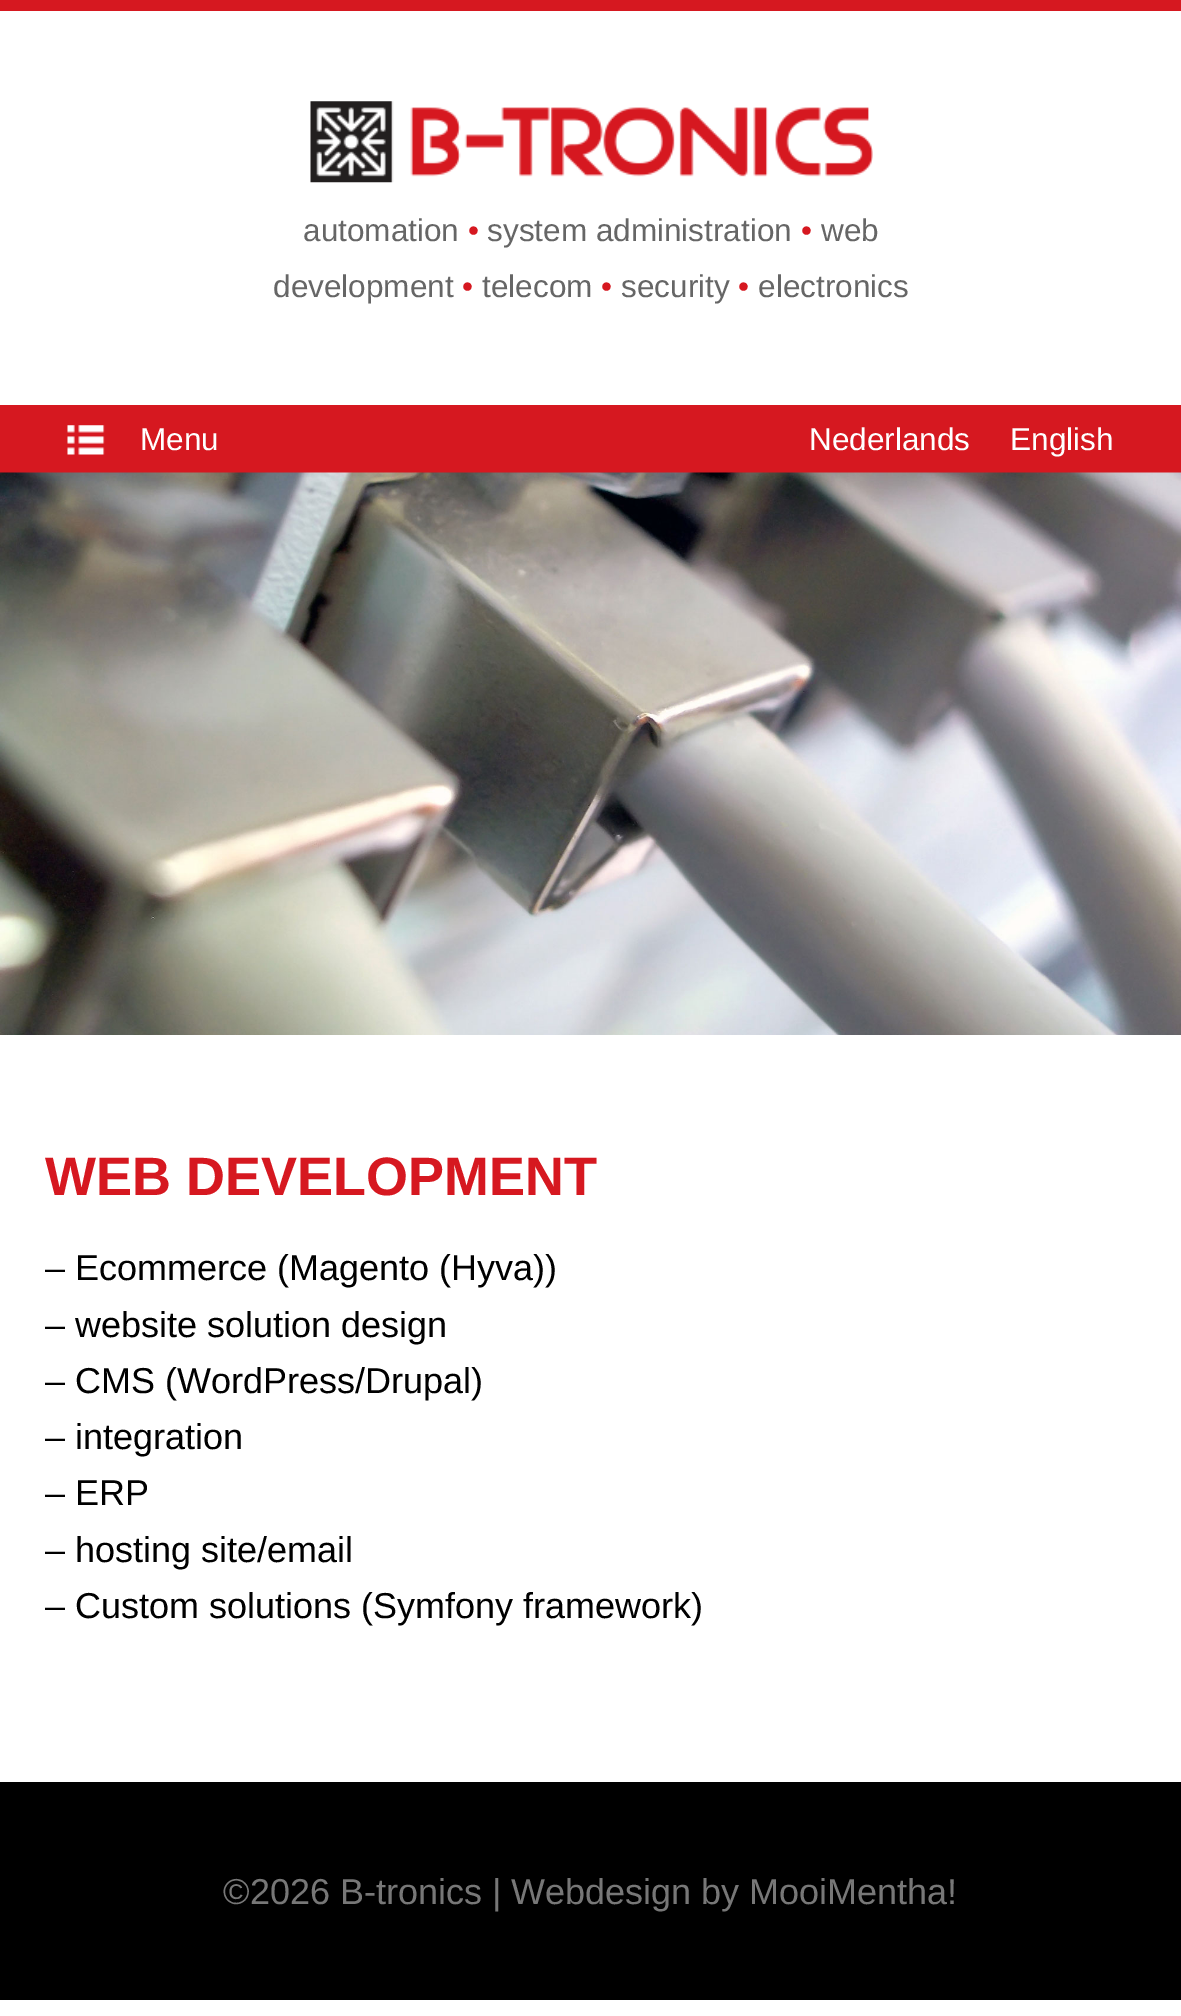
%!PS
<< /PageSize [1181 2016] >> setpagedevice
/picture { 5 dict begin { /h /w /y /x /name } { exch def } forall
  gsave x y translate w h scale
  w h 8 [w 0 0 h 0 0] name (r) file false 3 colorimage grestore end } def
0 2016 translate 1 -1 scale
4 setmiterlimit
1 setgray
0 0 1181 2016 rectfill
0.839 0.094 0.125 setrgbcolor
0 0 1181 11 rectfill
(img1.rgb) 310 101 563 82 picture
/LiberationSans-Regular [31.5 0 0 -31.5 0 0] selectfont
0.4 setgray
303 241 moveto (automation) show
0.839 0.094 0.125 setrgbcolor
468 241 moveto (•) show
0.4 setgray
487 241 moveto (system administration) show
0.839 0.094 0.125 setrgbcolor
801 241 moveto (•) show
0.4 setgray
821 241 moveto (web) show
273 297 moveto (development) show
0.839 0.094 0.125 setrgbcolor
462 297 moveto (•) show
0.4 setgray
482 297 moveto (telecom) show
0.839 0.094 0.125 setrgbcolor
601 297 moveto (•) show
0.4 setgray
621 297 moveto (security) show
0.839 0.094 0.125 setrgbcolor
738 297 moveto (•) show
0.4 setgray
758 297 moveto (electronics) show
0.839 0.094 0.125 setrgbcolor
0 405 1181 68 rectfill
(img2.rgb) 67 425 38 30 picture
1 setgray
140 450 moveto (Menu) show
809 450 moveto (Nederlands) show
1010 450 moveto (English) show
(img3.rgb) 0 472 1181 563 picture
/LiberationSans-Bold [54 0 0 -54 0 0] selectfont
0.839 0.094 0.125 setrgbcolor
45 1195 moveto (WEB DEVELOPMENT) show
/LiberationSans-Regular [36 0 0 -36 0 0] selectfont
0 setgray
45 1280 moveto (– Ecommerce \(Magento \(Hyva\)\)) show
45 1337 moveto (– website solution design) show
45 1393 moveto (– CMS \(WordPress/Drupal\)) show
45 1449 moveto (– integration) show
45 1505 moveto (– ERP) show
45 1562 moveto (– hosting site/email) show
45 1618 moveto (– Custom solutions \(Symfony framework\)) show
0 1782 1181 218 rectfill
0.467 setgray
223 1904 moveto (©2026 B-tronics | Webdesign by MooiMentha!) show
showpage
